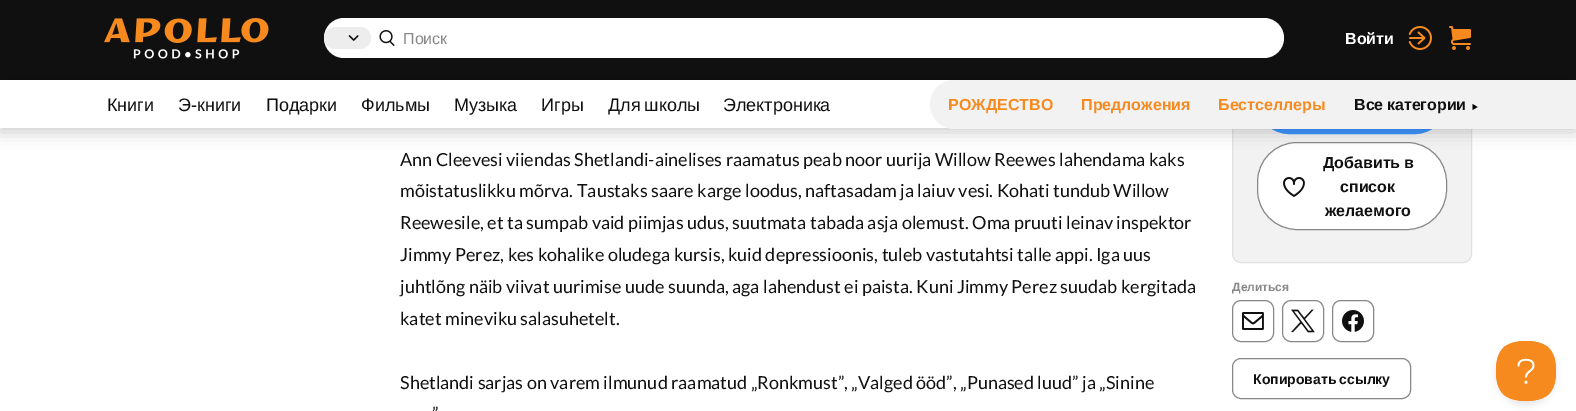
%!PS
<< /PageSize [1576 411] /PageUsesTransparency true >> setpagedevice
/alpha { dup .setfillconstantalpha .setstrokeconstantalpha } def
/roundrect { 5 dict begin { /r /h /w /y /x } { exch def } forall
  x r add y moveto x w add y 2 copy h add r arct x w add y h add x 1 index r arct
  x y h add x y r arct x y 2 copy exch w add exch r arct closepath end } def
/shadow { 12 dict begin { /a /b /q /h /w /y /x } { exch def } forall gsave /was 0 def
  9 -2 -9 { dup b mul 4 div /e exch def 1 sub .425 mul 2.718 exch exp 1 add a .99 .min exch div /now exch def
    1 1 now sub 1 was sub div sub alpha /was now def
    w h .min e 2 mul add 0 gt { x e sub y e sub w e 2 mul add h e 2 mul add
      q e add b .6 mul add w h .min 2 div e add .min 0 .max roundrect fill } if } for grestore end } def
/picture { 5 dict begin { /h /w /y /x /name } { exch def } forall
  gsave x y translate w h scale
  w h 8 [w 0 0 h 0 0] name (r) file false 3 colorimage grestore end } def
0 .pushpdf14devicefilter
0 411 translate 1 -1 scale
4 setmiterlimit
1 setgray
0 0 1576 411 rectfill
0.949 setgray
1232.5 -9.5 239 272 8.5 roundrect gsave fill grestore
0.882 setgray
stroke
0.239 0.576 1 setrgbcolor
1257.5 70.5 189 63 31.5 roundrect gsave fill grestore
stroke
0.063 setgray
0 0 1576 80 rectfill
(img1.rgb) 104 18 165 41 picture
1 setgray
324 18 960 40 20 roundrect fill
0.929 setgray
324 27 47 22 11 roundrect fill
(img2.rgb) 348 35 11 6 picture
(img3.rgb) 379 30 16 16 picture
/LiberationSans-Regular [16 0 0 -16 0 0] selectfont
0.533 setgray
403 44 moveto (Поиск) show
/LiberationSans-Bold [16 0 0 -16 0 0] selectfont
1 setgray
1345 44 moveto (Войти) show
(img4.rgb) 1408 26 24 24 picture
(img5.rgb) 1449 26 22 24 picture
1257.5 142.5 189 87 39.5 roundrect gsave fill grestore
0.533 setgray
stroke
0 setgray
0 84 1576 48 0 8 0.2 shadow
1 setgray
0 80 954 48 rectfill
/LiberationSans-Regular [18 0 0 -18 0 0] selectfont
0.063 setgray
107 111 moveto (Книги) show
178 111 moveto (Э-книги) show
266 111 moveto (Подарки) show
361 111 moveto (Фильмы) show
454 111 moveto (Музыка) show
541 111 moveto (Игры) show
608 111 moveto -1 0 32 (Для школы) widthshow
723 111 moveto (Электроника) show
0.949 setgray
newpath 954.5 80 moveto 1480 80 lineto 1480 129 lineto 954.5 129 lineto 941 129 930 118 930 104.5 curveto 930 91 941 80 954.5 80 curveto closepath fill
/LiberationSans-Bold [16 0 0 -16 0 0] selectfont
0.965 0.541 0.122 setrgbcolor
948 110 moveto (РОЖДЕСТВО) show
1081 110 moveto (Предложения) show
1218 110 moveto (Бестселлеры) show
0.063 setgray
1354 110 moveto -1 0 32 (Все категории) widthshow
0 setgray
newpath 1477.5 107 moveto 1472.5 110 lineto 1472.5 104 lineto closepath fill
0.949 setgray
1480 80 96 49 rectfill
/Lato-Regular [18 0 0 -18 0 0] selectfont
0.063 setgray
400 166 moveto (Ann Cleevesi viiendas Shetlandi-ainelises raamatus peab noor uurija Willow Reewes lahendama kaks) show
400 197 moveto (mõistatuslikku mõrva. Taustaks saare karge loodus, naftasadam ja laiuv vesi. Kohati tundub Willow) show
400 229 moveto (Reewesile, et ta sumpab vaid piimjas udus, suutmata tabada asja olemust. Oma pruuti leinav inspektor) show
400 261 moveto (Jimmy Perez, kes kohalike oludega kursis, kuid depressioonis, tuleb vastutahtsi talle appi. Iga uus) show
400 293 moveto (juhtlõng näib viivat uurimise uude suunda, aga lahendust ei paista. Kuni Jimmy Perez suudab kergitada) show
400 325 moveto (katet mineviku salasuhetelt.) show
400 389 moveto (Shetlandi sarjas on varem ilmunud raamatud „Ronkmust”, „Valged ööd”, „Punased luud” ja „Sinine) show
432 420 moveto (”) show
(img6.rgb) 1283 177 22 20 picture
/LiberationSans-Bold [16 0 0 -16 0 0] selectfont
1323 168 moveto -1 0 32 (Добавить в) widthshow
1340 192 moveto (список) show
1325 216 moveto (желаемого) show
/LiberationSans-Bold [12 0 0 -12 0 0] selectfont
0.533 setgray
1232 291 moveto (Делиться) show
1232.5 300.5 41 41 8.5 roundrect stroke
(img7.rgb) 1242 312 22 18 picture
1282.5 300.5 41 41 8.5 roundrect stroke
(img8.rgb) 1291 309 24 24 picture
1332.5 300.5 41 41 8.5 roundrect stroke
(img9.rgb) 1342 310 22 22 picture
1232.5 358.5 178 40 8.5 roundrect stroke
/LiberationSans-Bold [14 0 0 -14 0 0] selectfont
0.063 setgray
1253 384 moveto -1 0 32 (Копировать ссылку) widthshow
0 setgray
1496 345 60 60 30 3.5 0.1 shadow
(img10.rgb) 1496 341 60 60 picture
.poppdf14devicefilter showpage
